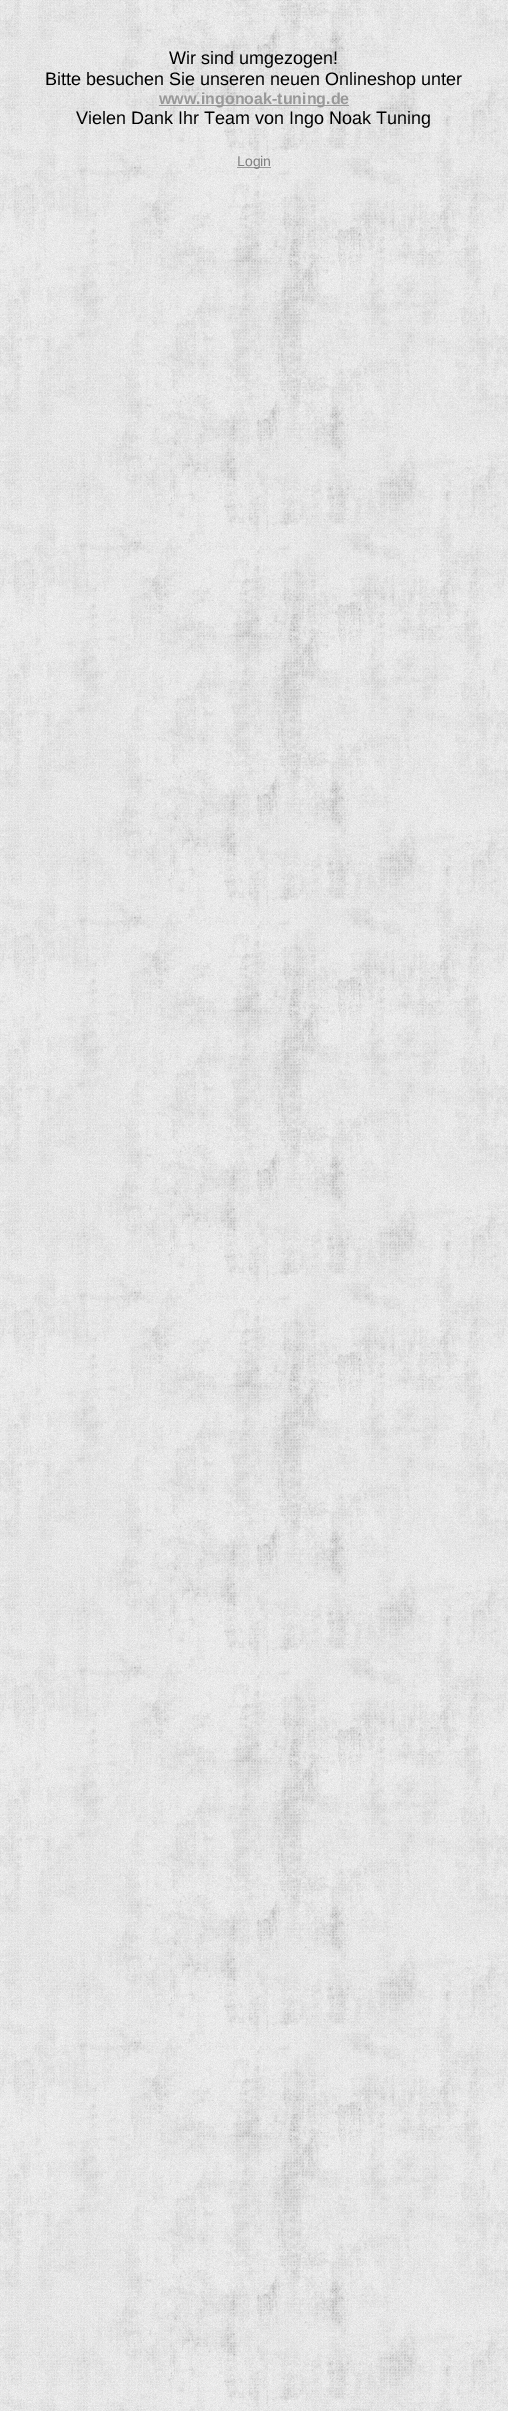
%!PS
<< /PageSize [508 2411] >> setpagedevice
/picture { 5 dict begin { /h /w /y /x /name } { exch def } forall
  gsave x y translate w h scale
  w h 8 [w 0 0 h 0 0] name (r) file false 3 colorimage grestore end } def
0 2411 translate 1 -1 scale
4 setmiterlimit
1 setgray
0 0 508 2411 rectfill
(img1.rgb) 0 0 508 2411 picture
/LiberationSans-Regular [18 0 0 -18 0 0] selectfont
0 setgray
169 64 moveto (Wir sind umgezogen!) show
45 85 moveto (Bitte besuchen Sie unseren neuen Onlineshop unter) show
0.6 setgray
159 105 190 1 rectfill
/LiberationSans-Bold [16 0 0 -16 0 0] selectfont
159 104 moveto (www.ingonoak-tuning.de) show
/LiberationSans-Regular [18 0 0 -18 0 0] selectfont
0 setgray
76 124 moveto (Vielen Dank Ihr Team von Ingo Noak Tuning) show
0.6 setgray
237 167 34 1 rectfill
/LiberationSans-Regular [14 0 0 -14 0 0] selectfont
0.502 setgray
237 166 moveto (Login) show
showpage
